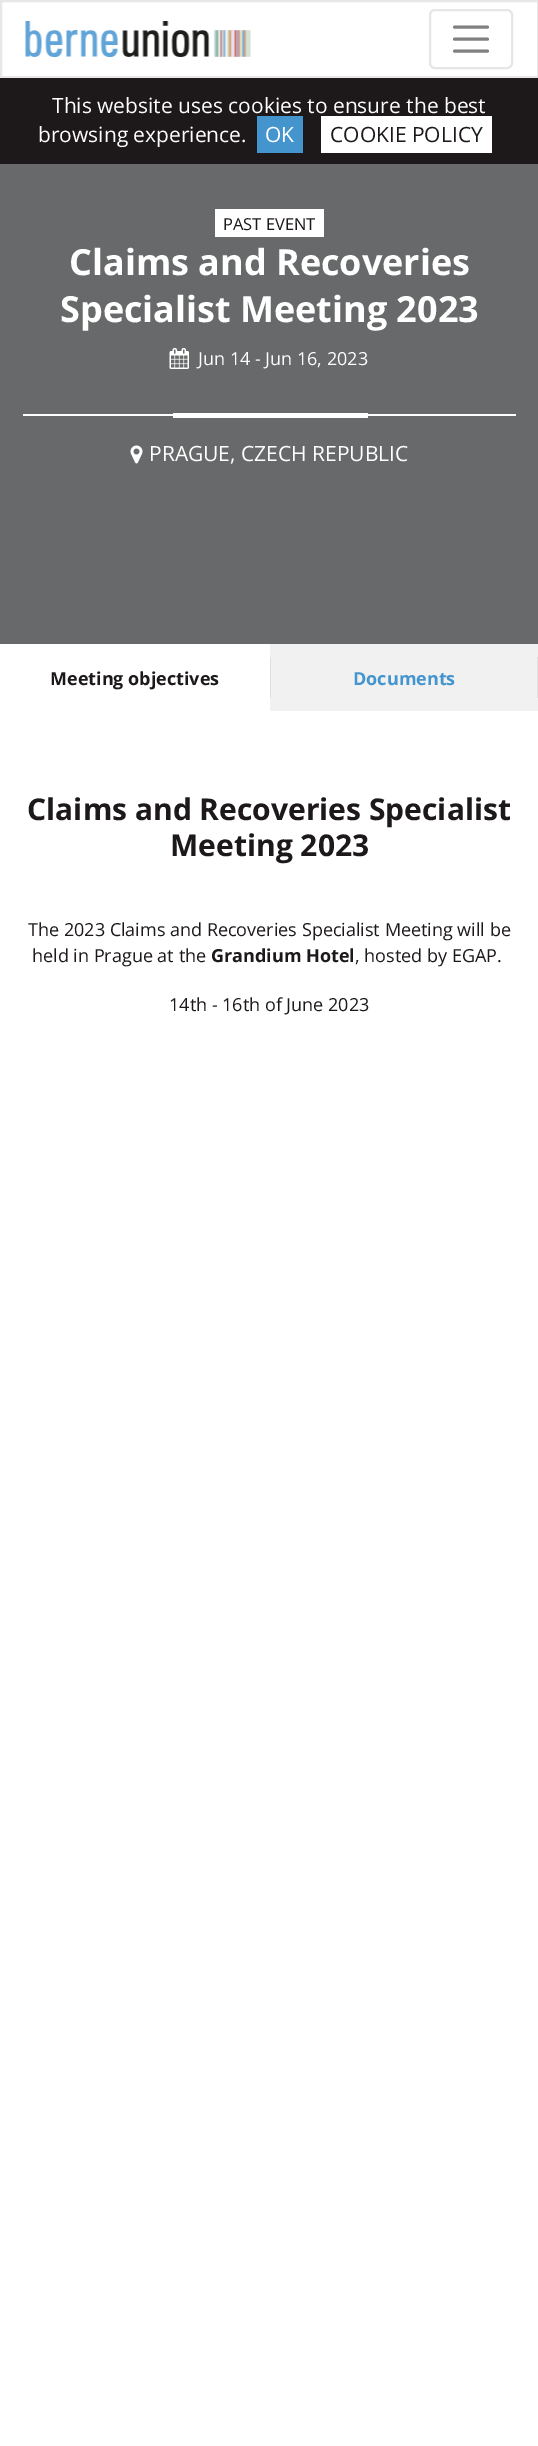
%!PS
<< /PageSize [538 2446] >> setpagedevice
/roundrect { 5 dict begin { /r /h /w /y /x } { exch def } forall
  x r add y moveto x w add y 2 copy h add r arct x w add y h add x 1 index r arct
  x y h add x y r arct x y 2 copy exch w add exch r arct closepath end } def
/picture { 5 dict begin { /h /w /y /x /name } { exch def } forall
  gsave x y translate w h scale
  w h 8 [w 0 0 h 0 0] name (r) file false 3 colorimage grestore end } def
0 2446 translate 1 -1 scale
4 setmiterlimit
1 setgray
0 0 538 2446 rectfill
0.906 setgray
2 setlinewidth
1 1 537 76 rectstroke
(img1.rgb) 25 21 226 36 picture
0.902 setgray
430 10 82 58 5 roundrect stroke
0.502 setgray
3 setlinewidth
1 setlinecap
newpath 454.5 27 moveto 487.5 27 lineto 454.5 39 moveto 487.5 39 lineto 454.5 51 moveto 487.5 51 lineto stroke
0.114 0.098 0.102 setrgbcolor
0 78 538 86 rectfill
/OpenSans-Regular [21 0 0 -21 0 0] selectfont
1 setgray
52 113 moveto (This website uses cookies to ensure the best) show
38 142 moveto (browsing experience.) show
0.267 0.584 0.804 setrgbcolor
257 116 46 37 rectfill
1 setgray
265 142 moveto (OK) show
321 116 171 37 rectfill
0.114 0.098 0.102 setrgbcolor
330 142 moveto (COOKIE POLICY) show
0.408 0.412 0.416 setrgbcolor
0 164 538 480 rectfill
1 setgray
215 209 109 28 rectfill
/OpenSans-Regular [16.5 0 0 -16.5 0 0] selectfont
0.114 0.098 0.102 setrgbcolor
223 230 moveto (PAST EVENT) show
/OpenSans-Bold [36 0 0 -36 0 0] selectfont
1 setgray
69 275 moveto (Claims and Recoveries) show
60 322 moveto (Specialist Meeting 2023) show
(img2.rgb) 169 348 20 21 picture
/OpenSans-Regular [18 0 0 -18 0 0] selectfont
198 365 moveto (Jun 14 - Jun 16, 2023) show
23 414 493 2 rectfill
173 413 195 5 rectfill
(img3.rgb) 130 445 13 19 picture
/OpenSans-Regular [21 0 0 -21 0 0] selectfont
149 461 moveto (PRAGUE, CZECH REPUBLIC) show
0.945 setgray
270 644 268 67 rectfill
/OpenSans-Bold [18 0 0 -18 0 0] selectfont
0.114 0.098 0.102 setrgbcolor
50 685 moveto (Meeting objectives) show
0.878 setgray
270 657 1 41 rectfill
0.267 0.584 0.804 setrgbcolor
353 685 moveto (Documents) show
0.878 setgray
537 657 1 41 rectfill
/OpenSans-Bold [30 0 0 -30 0 0] selectfont
0.114 0.098 0.102 setrgbcolor
27 820 moveto (Claims and Recoveries Specialist) show
170 856 moveto (Meeting 2023) show
/OpenSans-Regular [18 0 0 -18 0 0] selectfont
28 936 moveto (The 2023 Claims and Recoveries Specialist Meeting will be) show
32 962 moveto (held in Prague at the) show
/OpenSans-Bold [18 0 0 -18 0 0] selectfont
211 962 moveto (Grandium Hotel) show
/OpenSans-Regular [18 0 0 -18 0 0] selectfont
355 962 moveto (, hosted by EGAP.) show
169 1011 moveto (14th - 16th of June 2023) show
showpage
